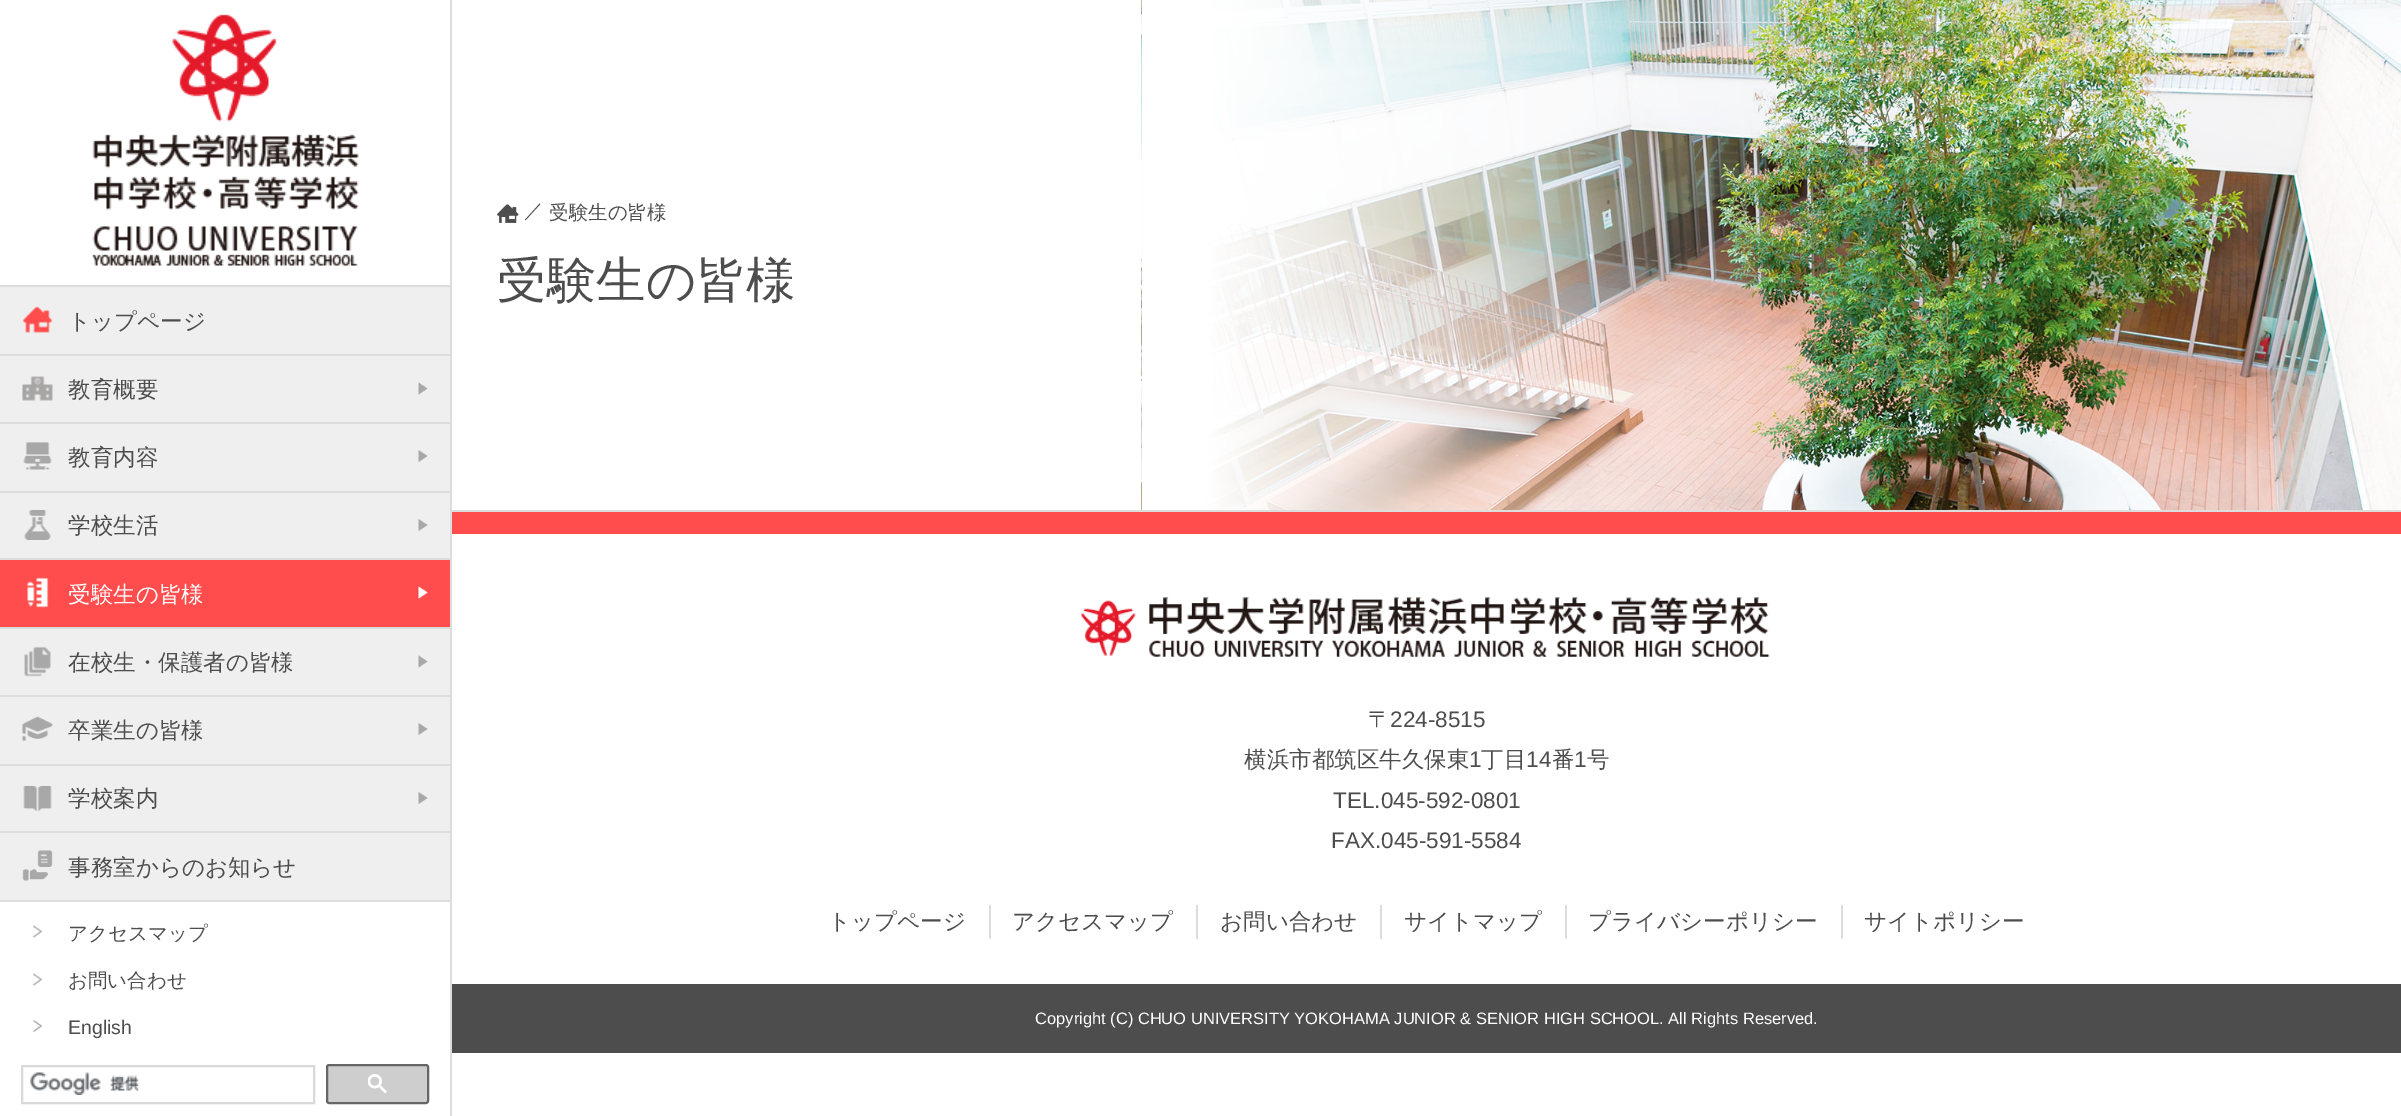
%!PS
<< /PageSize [2401 1116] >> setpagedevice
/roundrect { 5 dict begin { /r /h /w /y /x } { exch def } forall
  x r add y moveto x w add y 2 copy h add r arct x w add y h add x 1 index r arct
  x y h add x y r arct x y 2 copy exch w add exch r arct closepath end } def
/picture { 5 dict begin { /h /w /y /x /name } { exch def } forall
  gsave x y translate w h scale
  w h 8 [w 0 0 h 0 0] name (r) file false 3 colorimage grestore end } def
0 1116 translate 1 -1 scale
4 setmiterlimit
1 setgray
0 0 2401 1116 rectfill
0.867 setgray
450 0 2 1116 rectfill
(img1.rgb) 92 14 267 252 picture
0.937 setgray
0 287 450 613 rectfill
0.867 setgray
0 285 450 2 rectfill
(img2.rgb) 22 306 31 27 picture
/WenQuanYiZenHei-Medium [22.5 0 0 -22.5 0 0] selectfont
0.302 setgray
68 329 moveto (トップページ) show
0.867 setgray
0 354 450 2 rectfill
(img3.rgb) 22 376 31 25 picture
0.302 setgray
68 397 moveto (教育概要) show
(img4.rgb) 418 382 10 13 picture
0.867 setgray
0 422 450 2 rectfill
(img5.rgb) 23 442 29 28 picture
0.302 setgray
68 465 moveto (教育内容) show
(img6.rgb) 418 450 10 12 picture
0.867 setgray
0 491 450 2 rectfill
(img7.rgb) 24 510 27 30 picture
0.302 setgray
68 533 moveto (学校生活) show
(img6.rgb) 418 519 10 12 picture
0.867 setgray
0 558 450 2 rectfill
1 0.298 0.298 setrgbcolor
0 560 450 67 rectfill
(img8.rgb) 26 577 23 31 picture
1 setgray
68 602 moveto (受験生の皆様) show
(img9.rgb) 418 586 10 13 picture
0.867 setgray
0 627 450 2 rectfill
(img10.rgb) 24 646 27 31 picture
0.302 setgray
68 670 moveto (在校生・保護者の皆様) show
(img4.rgb) 418 655 10 13 picture
0.867 setgray
0 695 450 2 rectfill
(img11.rgb) 22 716 31 26 picture
0.302 setgray
68 738 moveto (卒業生の皆様) show
(img6.rgb) 418 723 10 12 picture
0.867 setgray
0 764 450 2 rectfill
(img12.rgb) 23 786 29 26 picture
0.302 setgray
68 806 moveto (学校案内) show
(img6.rgb) 418 792 10 12 picture
0.867 setgray
0 831 450 2 rectfill
(img13.rgb) 22 850 31 31 picture
0.302 setgray
68 875 moveto (事務室からのお知らせ) show
0.867 setgray
0 900 450 2 rectfill
(img14.rgb) 32 925 11 13 picture
/WenQuanYiZenHei-Medium [19.5 0 0 -19.5 0 0] selectfont
0.302 setgray
68 940 moveto (アクセスマップ) show
(img14.rgb) 32 973 11 13 picture
68 987 moveto (お問い合わせ) show
(img15.rgb) 33 1020 9 12 picture
/LiberationSans-Regular [19.5 0 0 -19.5 0 0] selectfont
68 1034 moveto (English) show
0.851 setgray
2 setlinewidth
22 1066 292 37 rectstroke
(img16.rgb) 30 1072 109 23 picture
0.808 setgray
327 1065 101 38 2 roundrect gsave fill grestore
0.4 setgray
stroke
(img17.rgb) 368 1074 19 20 picture
0.867 setgray
452 510 1949 2 rectfill
(img18.rgb) 497 204 22 19 picture
/WenQuanYiZenHei-Medium [19.5 0 0 -19.5 0 0] selectfont
0.302 setgray
524 217 moveto (／) show
549 219 moveto (受験生の皆様) show
/WenQuanYiZenHei-Medium [49.5 0 0 -49.5 0 0] selectfont
497 297 moveto (受験生の皆様) show
(img19.rgb) 1141 0 1260 510 picture
1 0.298 0.298 setrgbcolor
452 512 1949 22 rectfill
(img20.rgb) 1081 597 689 60 picture
/WenQuanYiZenHei-Medium [22.5 0 0 -22.5 0 0] selectfont
0.302 setgray
1368 727 moveto (〒) show
/LiberationSans-Regular [22.5 0 0 -22.5 0 0] selectfont
1390 727 moveto (224-8515) show
/WenQuanYiZenHei-Medium [22.5 0 0 -22.5 0 0] selectfont
1244 767 moveto (横浜市都筑区牛久保東) show
/LiberationSans-Regular [22.5 0 0 -22.5 0 0] selectfont
1469 767 moveto (1) show
/WenQuanYiZenHei-Medium [22.5 0 0 -22.5 0 0] selectfont
1481 767 moveto (丁目) show
/LiberationSans-Regular [22.5 0 0 -22.5 0 0] selectfont
1526 767 moveto (14) show
/WenQuanYiZenHei-Medium [22.5 0 0 -22.5 0 0] selectfont
1552 767 moveto (番) show
/LiberationSans-Regular [22.5 0 0 -22.5 0 0] selectfont
1574 767 moveto (1) show
/WenQuanYiZenHei-Medium [22.5 0 0 -22.5 0 0] selectfont
1587 767 moveto (号) show
/LiberationSans-Regular [22.5 0 0 -22.5 0 0] selectfont
1333 808 moveto (TEL.045-592-0801) show
1331 848 moveto (FAX.045-591-5584) show
/WenQuanYiZenHei-Medium [22.5 0 0 -22.5 0 0] selectfont
828 929 moveto (トップページ) show
0.867 setgray
989 905 2 34 rectfill
0.302 setgray
1012 929 moveto (アクセスマップ) show
0.867 setgray
1196 905 2 34 rectfill
0.302 setgray
1220 929 moveto (お問い合わせ) show
0.867 setgray
1380 905 2 34 rectfill
0.302 setgray
1404 929 moveto (サイトマップ) show
0.867 setgray
1565 905 2 34 rectfill
0.302 setgray
1588 929 moveto (プライバシーポリシー) show
0.867 setgray
1841 905 2 34 rectfill
0.302 setgray
1864 929 moveto (サイトポリシー) show
452 984 1949 69 rectfill
/LiberationSans-Regular [16.5 0 0 -16.5 0 0] selectfont
1 setgray
1035 1024 moveto (Copyright \(C\) CHUO UNIVERSITY YOKOHAMA JUNIOR & SENIOR HIGH SCHOOL. All Rights Reserved.) show
showpage
